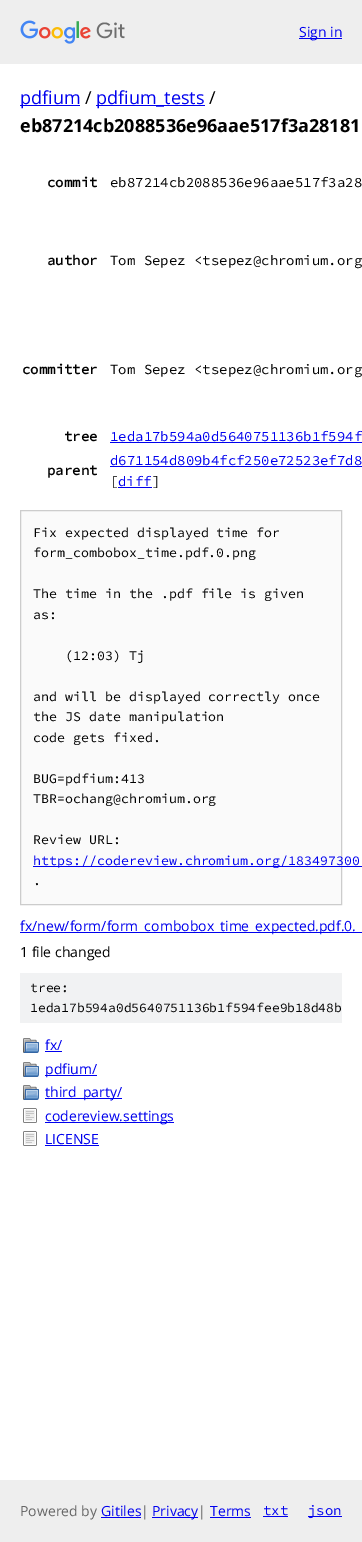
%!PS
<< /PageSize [362 1542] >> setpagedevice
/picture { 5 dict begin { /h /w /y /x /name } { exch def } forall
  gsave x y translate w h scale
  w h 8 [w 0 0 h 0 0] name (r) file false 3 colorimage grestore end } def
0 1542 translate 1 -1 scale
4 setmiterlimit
1 setgray
0 0 362 1542 rectfill
0.933 setgray
0 0 362 64 rectfill
(img1.rgb) 20 20 105 24 picture
0 0 0.933 setrgbcolor
299 38 43 1 rectfill
/OpenSans-Regular [14 0 0 -14 0 0] selectfont
299 37 moveto (Sign in) show
20 105 60 1 rectfill
/OpenSans-Regular [18 0 0 -18 0 0] selectfont
20 104 moveto (pdfium) show
0 setgray
85 104 moveto (/) show
0 0 0.933 setrgbcolor
96 105 109 1 rectfill
96 104 moveto (pdfium_tests) show
0 setgray
209 104 moveto (/) show
/OpenSans-Bold [18 0 0 -18 0 0] selectfont
20 132 moveto (eb87214cb2088536e96aae517f3a28181) show
/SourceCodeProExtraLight-Bold [14 0 0 -14 0 0] selectfont
47 187 moveto (commit) show
/SourceCodeProExtraLight-ExtraLight [14 0 0 -14 0 0] selectfont
110 187 moveto (eb87214cb2088536e96aae517f3a28) show
/SourceCodeProExtraLight-Bold [14 0 0 -14 0 0] selectfont
47 265 moveto (author) show
/SourceCodeProExtraLight-ExtraLight [14 0 0 -14 0 0] selectfont
110 265 moveto (Tom Sepez <tsepez@chromium.org) show
/SourceCodeProExtraLight-Bold [14 0 0 -14 0 0] selectfont
22 374 moveto (committer) show
/SourceCodeProExtraLight-ExtraLight [14 0 0 -14 0 0] selectfont
110 374 moveto (Tom Sepez <tsepez@chromium.org) show
/SourceCodeProExtraLight-Bold [14 0 0 -14 0 0] selectfont
64 441 moveto (tree) show
/SourceCodeProExtraLight-ExtraLight [14 0 0 -14 0 0] selectfont
0 0 0.933 setrgbcolor
110 441 moveto (1eda17b594a0d5640751136b1f594f) show
110 442 252 1 rectfill
/SourceCodeProExtraLight-Bold [14 0 0 -14 0 0] selectfont
0 setgray
47 475 moveto (parent) show
/SourceCodeProExtraLight-ExtraLight [14 0 0 -14 0 0] selectfont
0 0 0.933 setrgbcolor
110 465 moveto (d671154d809b4fcf250e72523ef7d8) show
110 466 252 1 rectfill
0 setgray
110 486 moveto ([) show
0 0 0.933 setrgbcolor
118 487 34 1 rectfill
118 486 moveto (diff) show
0 setgray
152 486 moveto (]) show
0.98 setgray
newpath 20.5 510.5 moveto 341.5 510.5 lineto 341.5 904.5 lineto 20.5 904.5 lineto closepath gsave fill grestore
0.8 setgray
stroke
/SourceCodeProExtraLight-ExtraLight [13.3 0 0 -13.3 0 0] selectfont
0 setgray
33 537 moveto (Fix expected displayed time for) show
33 557 moveto (form_combobox_time.pdf.0.png) show
33 598 moveto (The time in the .pdf file is given) show
33 619 moveto (as:) show
65 660 moveto (\(12:03\) Tj) show
33 701 moveto (and will be displayed correctly once) show
33 721 moveto (the JS date manipulation) show
33 742 moveto (code gets fixed.) show
33 783 moveto (BUG=pdfium:413) show
33 803 moveto (TBR=ochang@chromium.org) show
33 844 moveto (Review URL:) show
0 0 0.933 setrgbcolor
33 866 329 1 rectfill
33 865 moveto (https://codereview.chromium.org/183497300) show
0 setgray
33 885 moveto (.) show
0 0 0.933 setrgbcolor
20 932 342 1 rectfill
/OpenSans-Regular [14 0 0 -14 0 0] selectfont
20 931 moveto (fx/new/form/form_combobox_time_expected.pdf.0.) show
0 setgray
20 957 moveto (1 file changed) show
0.945 0.949 0.953 setrgbcolor
20 973 322 50 rectfill
/SourceCodeProExtraLight-ExtraLight [13 0 0 -13 0 0] selectfont
0 setgray
30 992 moveto (tree:) show
30 1012 moveto (1eda17b594a0d5640751136b1f594fee9b18d48b) show
(img2.rgb) 23 1038 16 15 picture
/OpenSans-Regular [14 0 0 -14 0 0] selectfont
0 0 0.933 setrgbcolor
45 1050 moveto (fx/) show
45 1051 17 1 rectfill
(img2.rgb) 23 1062 16 15 picture
45 1075 52 1 rectfill
45 1074 moveto (pdfium/) show
(img2.rgb) 23 1085 16 15 picture
45 1098 77 1 rectfill
45 1097 moveto (third_party/) show
(img3.rgb) 23 1108 14 15 picture
45 1122 129 1 rectfill
45 1121 moveto (codereview.settings) show
(img3.rgb) 23 1131 14 15 picture
45 1144 moveto (LICENSE) show
45 1145 54 1 rectfill
0.933 setgray
0 1480 362 62 rectfill
0.4 setgray
20 1516 moveto (Powered by) show
0 0 0.933 setrgbcolor
101 1516 moveto (Gitiles) show
101 1517 40 1 rectfill
0.4 setgray
141 1516 moveto (|) show
0 0 0.933 setrgbcolor
152 1517 46 1 rectfill
152 1516 moveto (Privacy) show
0.4 setgray
198 1516 moveto (|) show
0 0 0.933 setrgbcolor
210 1516 moveto (Terms) show
210 1517 41 1 rectfill
/SourceCodeProExtraLight-ExtraLight [14 0 0 -14 0 0] selectfont
263 1515 moveto (txt) show
263 1516 25 1 rectfill
308 1516 34 1 rectfill
308 1515 moveto (json) show
showpage
